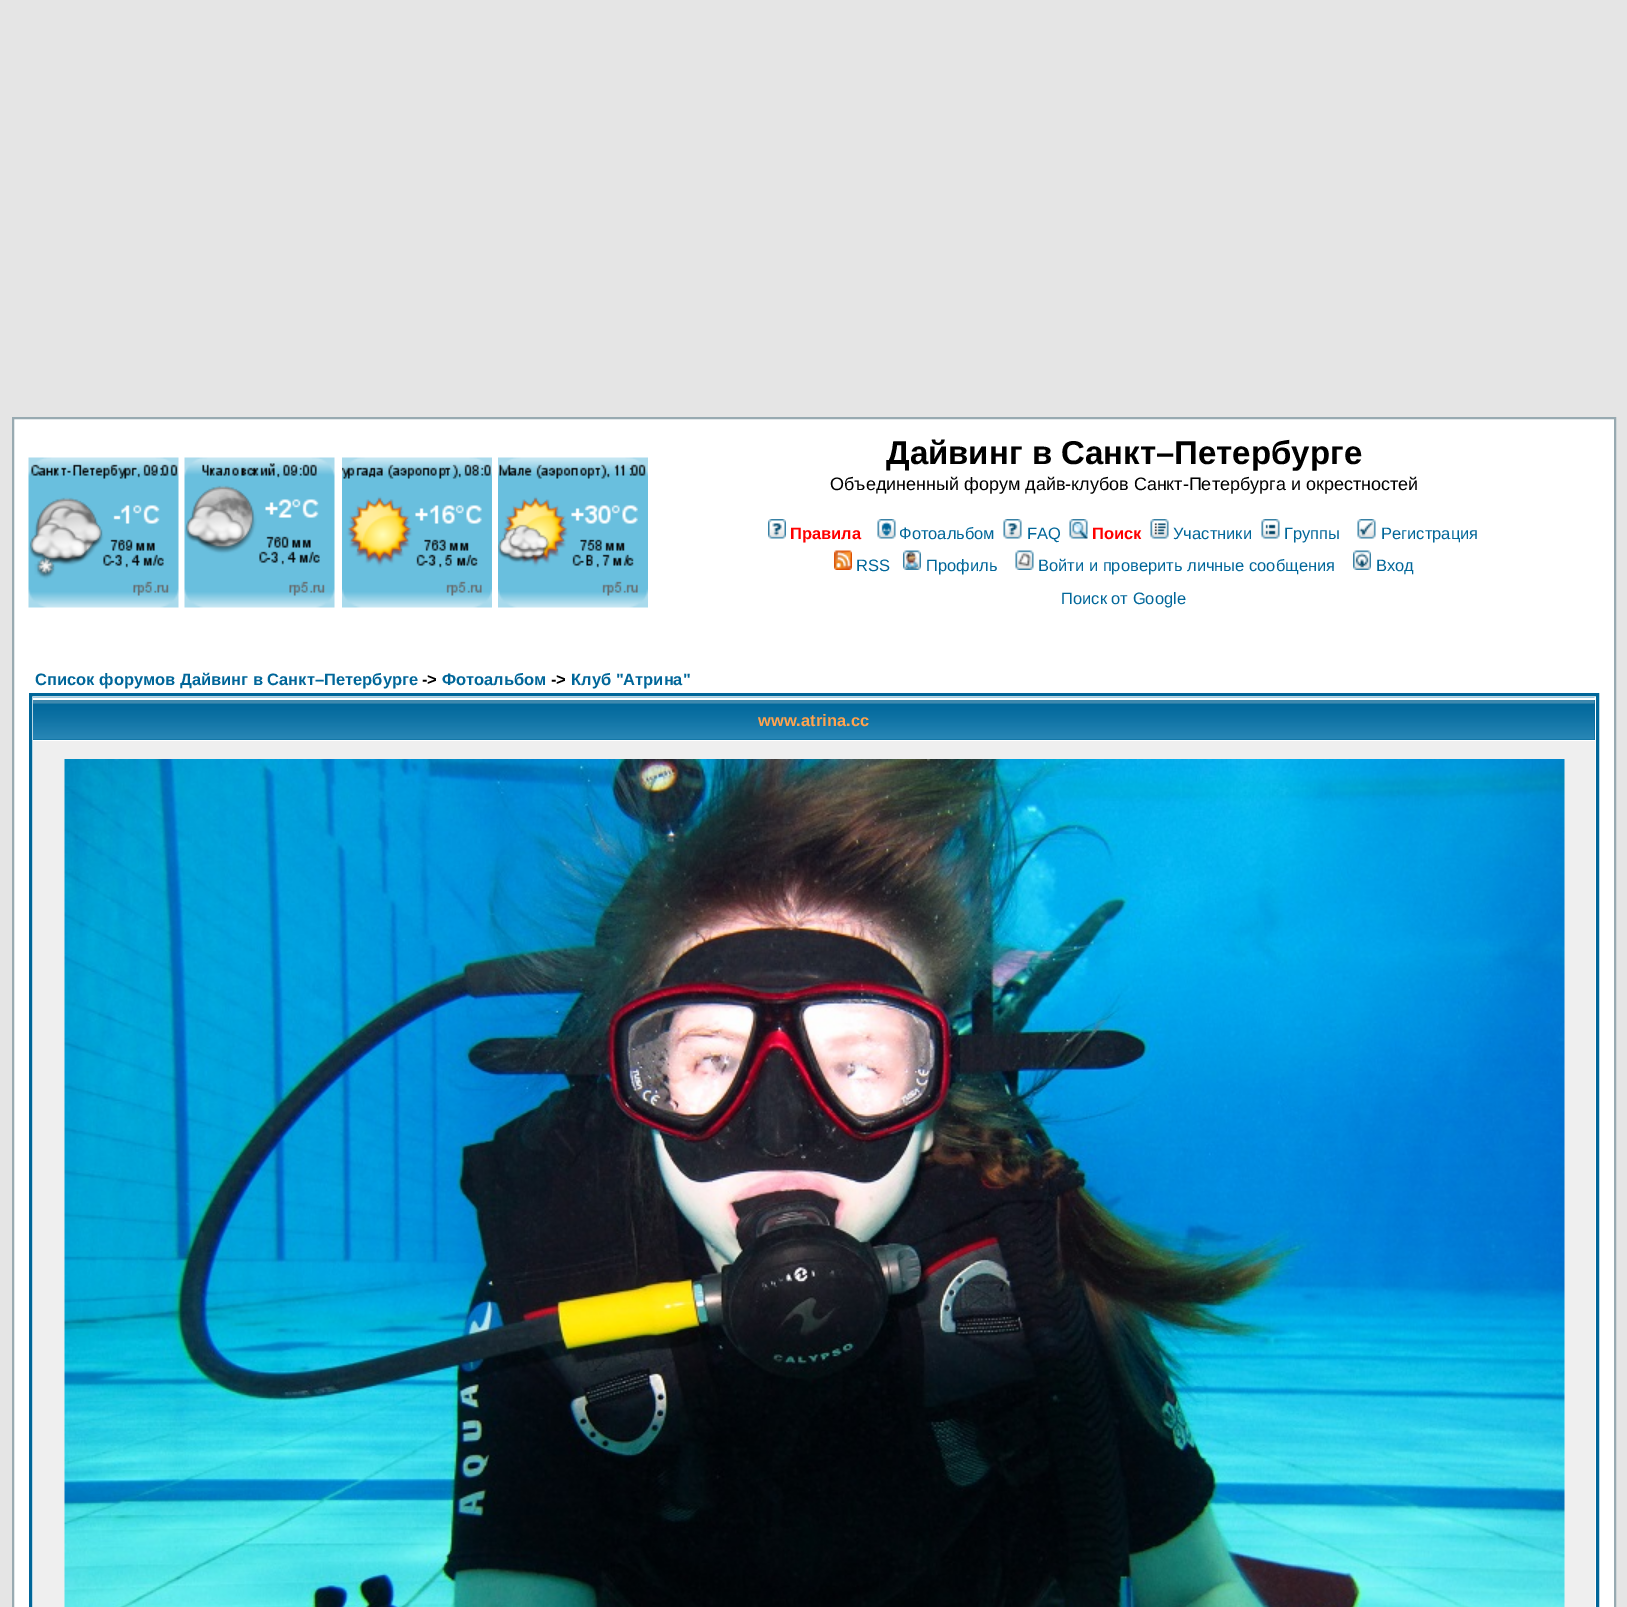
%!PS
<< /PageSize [1627 1607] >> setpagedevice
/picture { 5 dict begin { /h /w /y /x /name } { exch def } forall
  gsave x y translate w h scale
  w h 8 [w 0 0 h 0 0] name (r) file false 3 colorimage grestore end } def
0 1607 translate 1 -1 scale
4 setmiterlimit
0.898 setgray
0 0 1627 1607 rectfill
1 setgray
newpath 13 418 moveto 1615 418 lineto 1615 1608 lineto 13 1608 lineto closepath gsave fill grestore
0.596 0.667 0.694 setrgbcolor
2 setlinewidth
stroke
(img1.rgb) 28 457 151 151 picture
(img2.rgb) 184 457 151 151 picture
(img3.rgb) 342 457 150 151 picture
(img4.rgb) 498 457 150 151 picture
/LiberationSans-Bold [33 0 0 -33 0 0] selectfont
0 setgray
886 464 moveto (Дайвинг в Санкт–Петербурге) show
/LiberationSans-Regular [18 0 0 -18 0 0] selectfont
830 490 moveto (Объединенный форум дайв-клубов Санкт-Петербурга и окрестностей) show
(img5.rgb) 768 519 18 20 picture
/LiberationSans-Bold [16.5 0 0 -16.5 0 0] selectfont
1 0 0 setrgbcolor
790 539 moveto (Правила) show
(img6.rgb) 877 519 19 20 picture
/LiberationSans-Regular [16.5 0 0 -16.5 0 0] selectfont
0 0.4 0.6 setrgbcolor
899 539 moveto (Фотоальбом) show
(img7.rgb) 1003 519 19 20 picture
1027 539 moveto (FAQ) show
(img8.rgb) 1069 519 19 20 picture
/LiberationSans-Bold [16.5 0 0 -16.5 0 0] selectfont
1 0 0 setrgbcolor
1092 539 moveto (Поиск) show
(img9.rgb) 1150 519 19 20 picture
/LiberationSans-Regular [16.5 0 0 -16.5 0 0] selectfont
0 0.4 0.6 setrgbcolor
1173 539 moveto (Участники) show
(img10.rgb) 1261 519 19 20 picture
1284 539 moveto (Группы) show
(img11.rgb) 1357 519 19 20 picture
1381 539 moveto (Регистрация) show
(img12.rgb) 834 550 18 20 picture
856 571 moveto (RSS) show
(img13.rgb) 903 550 18 20 picture
926 571 moveto (Профиль) show
(img14.rgb) 1015 550 19 20 picture
1038 571 moveto (Войти и проверить личные сообщения) show
(img15.rgb) 1353 550 18 20 picture
1376 571 moveto (Вход) show
1061 604 moveto (Поиск от Google) show
/LiberationSans-Bold [16.5 0 0 -16.5 0 0] selectfont
35 685 moveto (Список форумов Дайвинг в Санкт–Петербурге) show
0 setgray
422 685 moveto (->) show
0 0.4 0.6 setrgbcolor
442 685 moveto (Фотоальбом) show
0 setgray
551 685 moveto (->) show
0 0.4 0.6 setrgbcolor
571 685 moveto (Клуб "Атрина") show
3 setlinewidth
30.5 694.5 1567 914 rectstroke
33 700 1562 40 rectfill
(img16.rgb) 33 697 1562 43 picture
1 setgray
33 698 1562 2 rectfill
1 0.639 0.31 setrgbcolor
758 726 moveto (www.atrina.cc) show
0.937 setgray
33 741 1562 866 rectfill
(img17.rgb) 64 759 1501 848 picture
showpage
